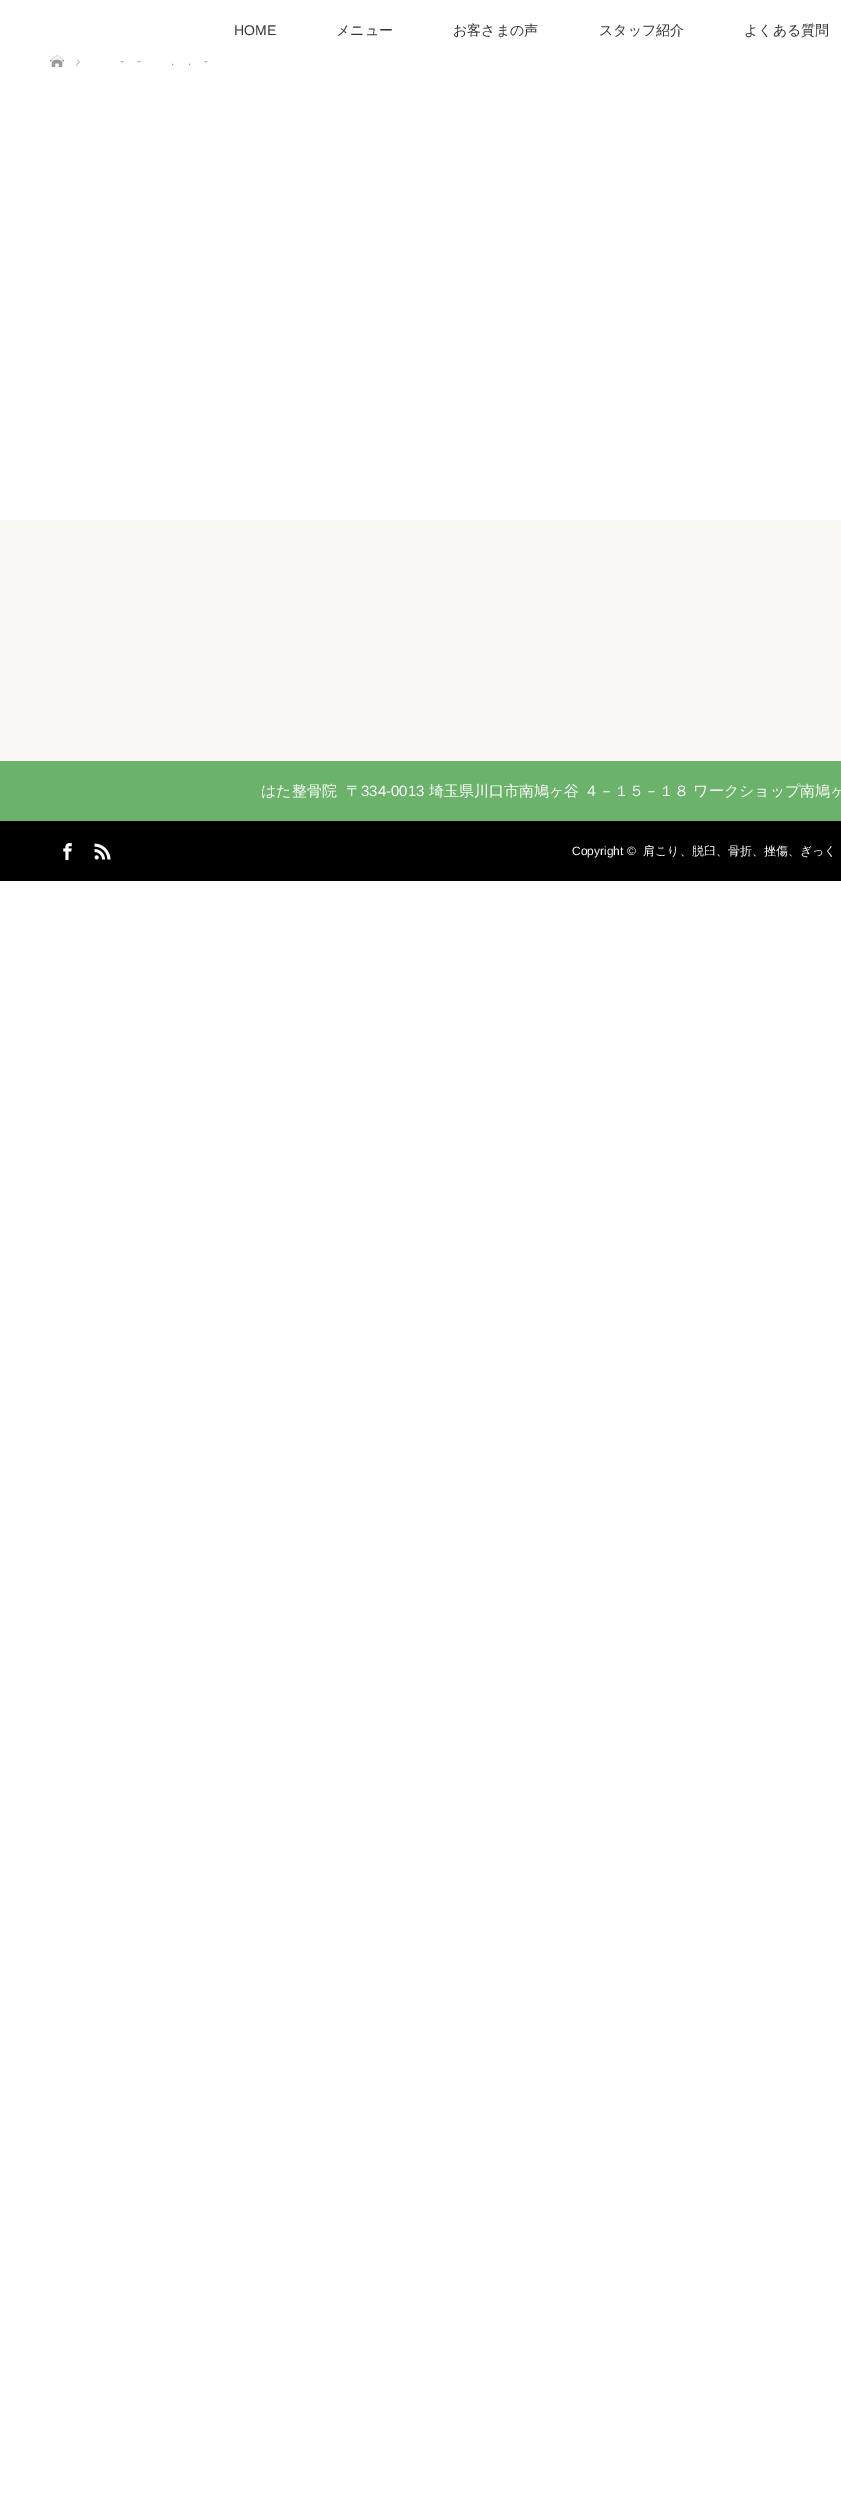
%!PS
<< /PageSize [841 2498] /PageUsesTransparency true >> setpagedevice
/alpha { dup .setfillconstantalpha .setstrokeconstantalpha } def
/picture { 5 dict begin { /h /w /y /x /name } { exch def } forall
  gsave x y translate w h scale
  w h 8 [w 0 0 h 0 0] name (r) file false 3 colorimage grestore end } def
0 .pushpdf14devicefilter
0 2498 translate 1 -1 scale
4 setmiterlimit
1 setgray
0 0 841 2498 rectfill
(img1.rgb) 50 54 14 13 picture
(img2.rgb) 75 58 5 8 picture
0.7 alpha
50 54 28 6 rectfill
/LiberationSans-Regular [14 0 0 -14 0 0] selectfont
1 alpha
0.2 setgray
234 35 moveto (HOME) show
/WenQuanYiZenHei-Medium [14 0 0 -14 0 0] selectfont
336 35 moveto (メニュー) show
453 35 moveto (お客さまの声) show
599 35 moveto (スタッフ紹介) show
744 35 moveto (よくある質問) show
/LiberationSans-Regular [12 0 0 -12 0 0] selectfont
0.6 setgray
120 65 moveto (-) show
137 65 moveto (-) show
204 65 moveto (-) show
171 65 moveto (.) show
188 65 moveto (.) show
0.976 0.973 0.957 setrgbcolor
0 520 841 241 rectfill
0.42 0.702 0.42 setrgbcolor
0 761 841 60 rectfill
/WenQuanYiZenHei-Medium [15 0 0 -15 0 0] selectfont
1 setgray
261 796 moveto (はた整骨院) show
346 796 moveto (〒) show
/LiberationSans-Regular [15 0 0 -15 0 0] selectfont
361 796 moveto (334-0013) show
/WenQuanYiZenHei-Medium [15 0 0 -15 0 0] selectfont
429 796 moveto (埼⽟県川⼝市南鳩ヶ⾕ ４－１５－１８ ワークショップ南鳩ヶ) show
0 setgray
0 821 841 60 rectfill
(img3.rgb) 63 843 9 18 picture
(img4.rgb) 94 843 17 17 picture
/LiberationSans-Regular [12 0 0 -12 0 0] selectfont
1 setgray
572 855 moveto (Copyright ©) show
/WenQuanYiZenHei-Medium [12 0 0 -12 0 0] selectfont
643 855 moveto (肩こり、脱臼、骨折、挫傷、ぎっく) show
.poppdf14devicefilter showpage
